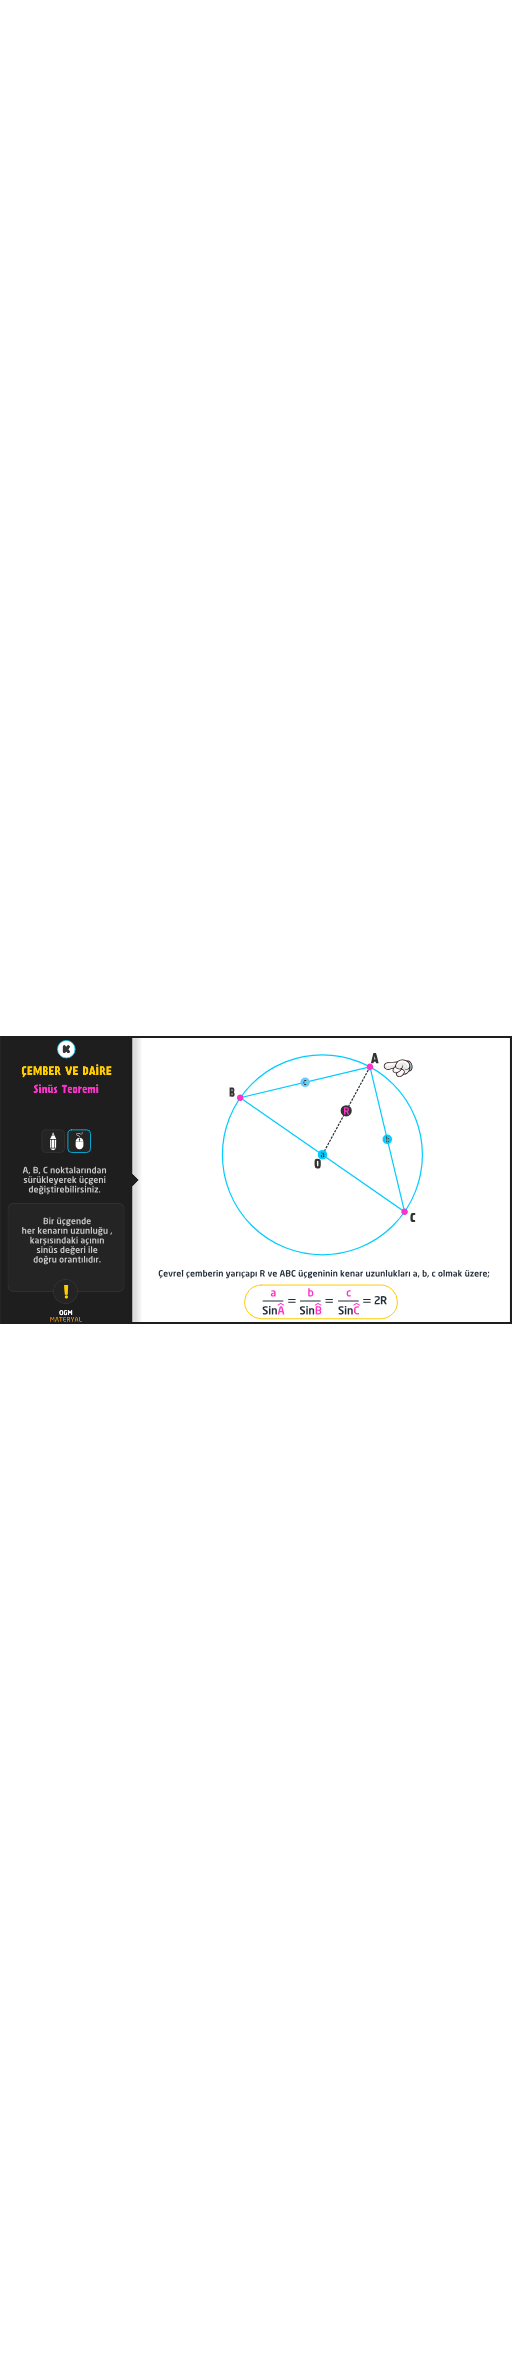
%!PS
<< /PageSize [512 2360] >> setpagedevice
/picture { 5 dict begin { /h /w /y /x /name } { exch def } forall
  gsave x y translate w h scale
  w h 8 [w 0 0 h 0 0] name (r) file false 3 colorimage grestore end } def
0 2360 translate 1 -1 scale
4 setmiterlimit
1 setgray
0 0 512 2360 rectfill
(img1.rgb) 0 1036 512 288 picture
showpage
